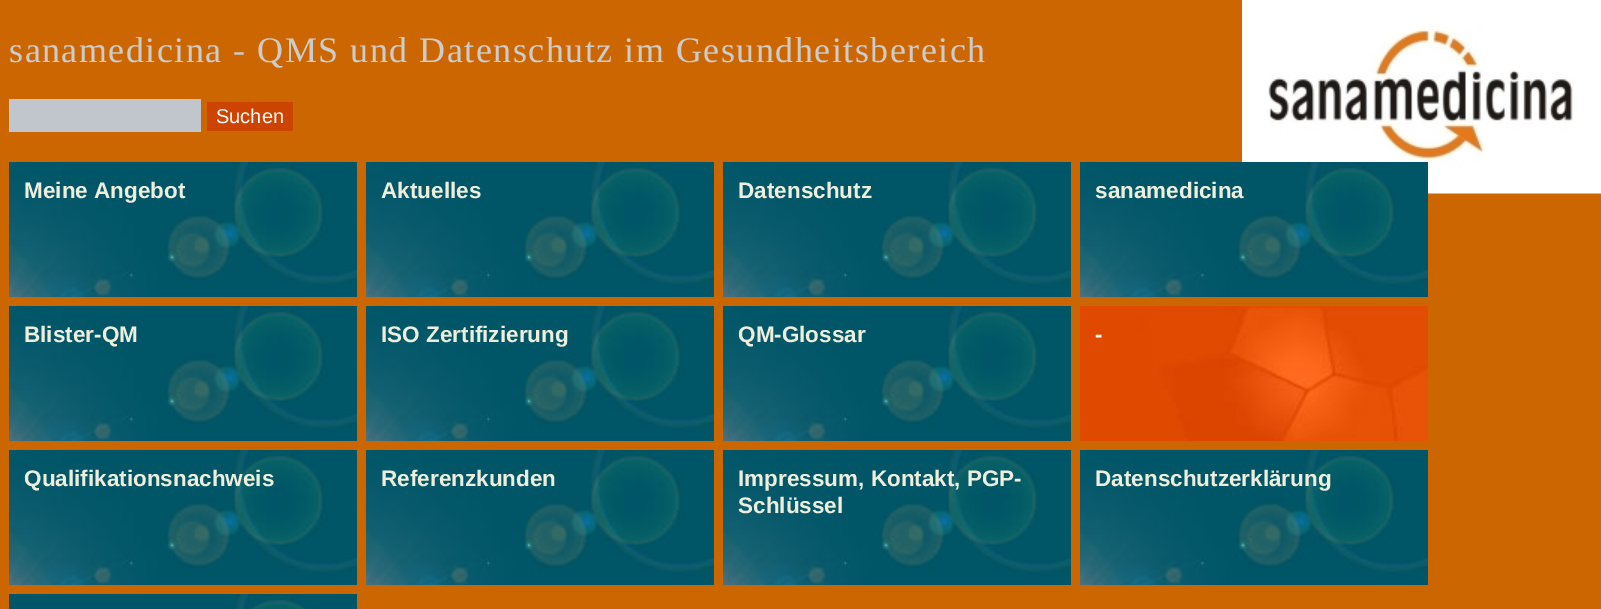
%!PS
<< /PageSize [1601 609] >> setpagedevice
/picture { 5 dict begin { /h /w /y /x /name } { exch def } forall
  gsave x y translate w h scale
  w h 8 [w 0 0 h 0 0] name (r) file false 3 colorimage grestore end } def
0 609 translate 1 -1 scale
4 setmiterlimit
0.8 0.4 0 setrgbcolor
0 0 1601 609 rectfill
(img1.rgb) 1242 0 359 194 picture
/LiberationSerif-Regular [36 0 0 -36 0 0] selectfont
0.8 setgray
9 62 moveto 1.5 0 (sanamedicina - QMS und Datenschutz im Gesundheitsbereich) ashow
0.753 0.776 0.8 setrgbcolor
9 99 192 33 rectfill
0.8 0.267 0 setrgbcolor
207 102 86 29 rectfill
/LiberationSans-Regular [20 0 0 -20 0 0] selectfont
1 setgray
216 123 moveto (Suchen) show
(img2.rgb) 9 162 348 135 picture
/LiberationSans-Bold [22.5 0 0 -22.5 0 0] selectfont
0.933 0.933 0.867 setrgbcolor
24 198 moveto (Meine Angebot) show
(img3.rgb) 366 162 348 135 picture
381 198 moveto (Aktuelles) show
(img4.rgb) 723 162 348 135 picture
738 198 moveto (Datenschutz) show
(img5.rgb) 1080 162 348 135 picture
1095 198 moveto (sanamedicina) show
(img2.rgb) 9 306 348 135 picture
24 342 moveto (Blister-QM) show
(img3.rgb) 366 306 348 135 picture
381 342 moveto (ISO Zertifizierung) show
(img4.rgb) 723 306 348 135 picture
738 342 moveto (QM-Glossar) show
(img6.rgb) 1080 306 348 135 picture
1 setgray
1095 342 moveto (-) show
(img2.rgb) 9 450 348 135 picture
0.933 0.933 0.867 setrgbcolor
24 486 moveto (Qualifikationsnachweis) show
(img3.rgb) 366 450 348 135 picture
381 486 moveto (Referenzkunden) show
(img4.rgb) 723 450 348 135 picture
738 486 moveto (Impressum, Kontakt, PGP-) show
738 513 moveto (Schlüssel) show
(img5.rgb) 1080 450 348 135 picture
1095 486 moveto (Datenschutzerklärung) show
0 0.333 0.4 setrgbcolor
9 594 348 15 rectfill
(img7.rgb) 235 594 80 15 picture
showpage
